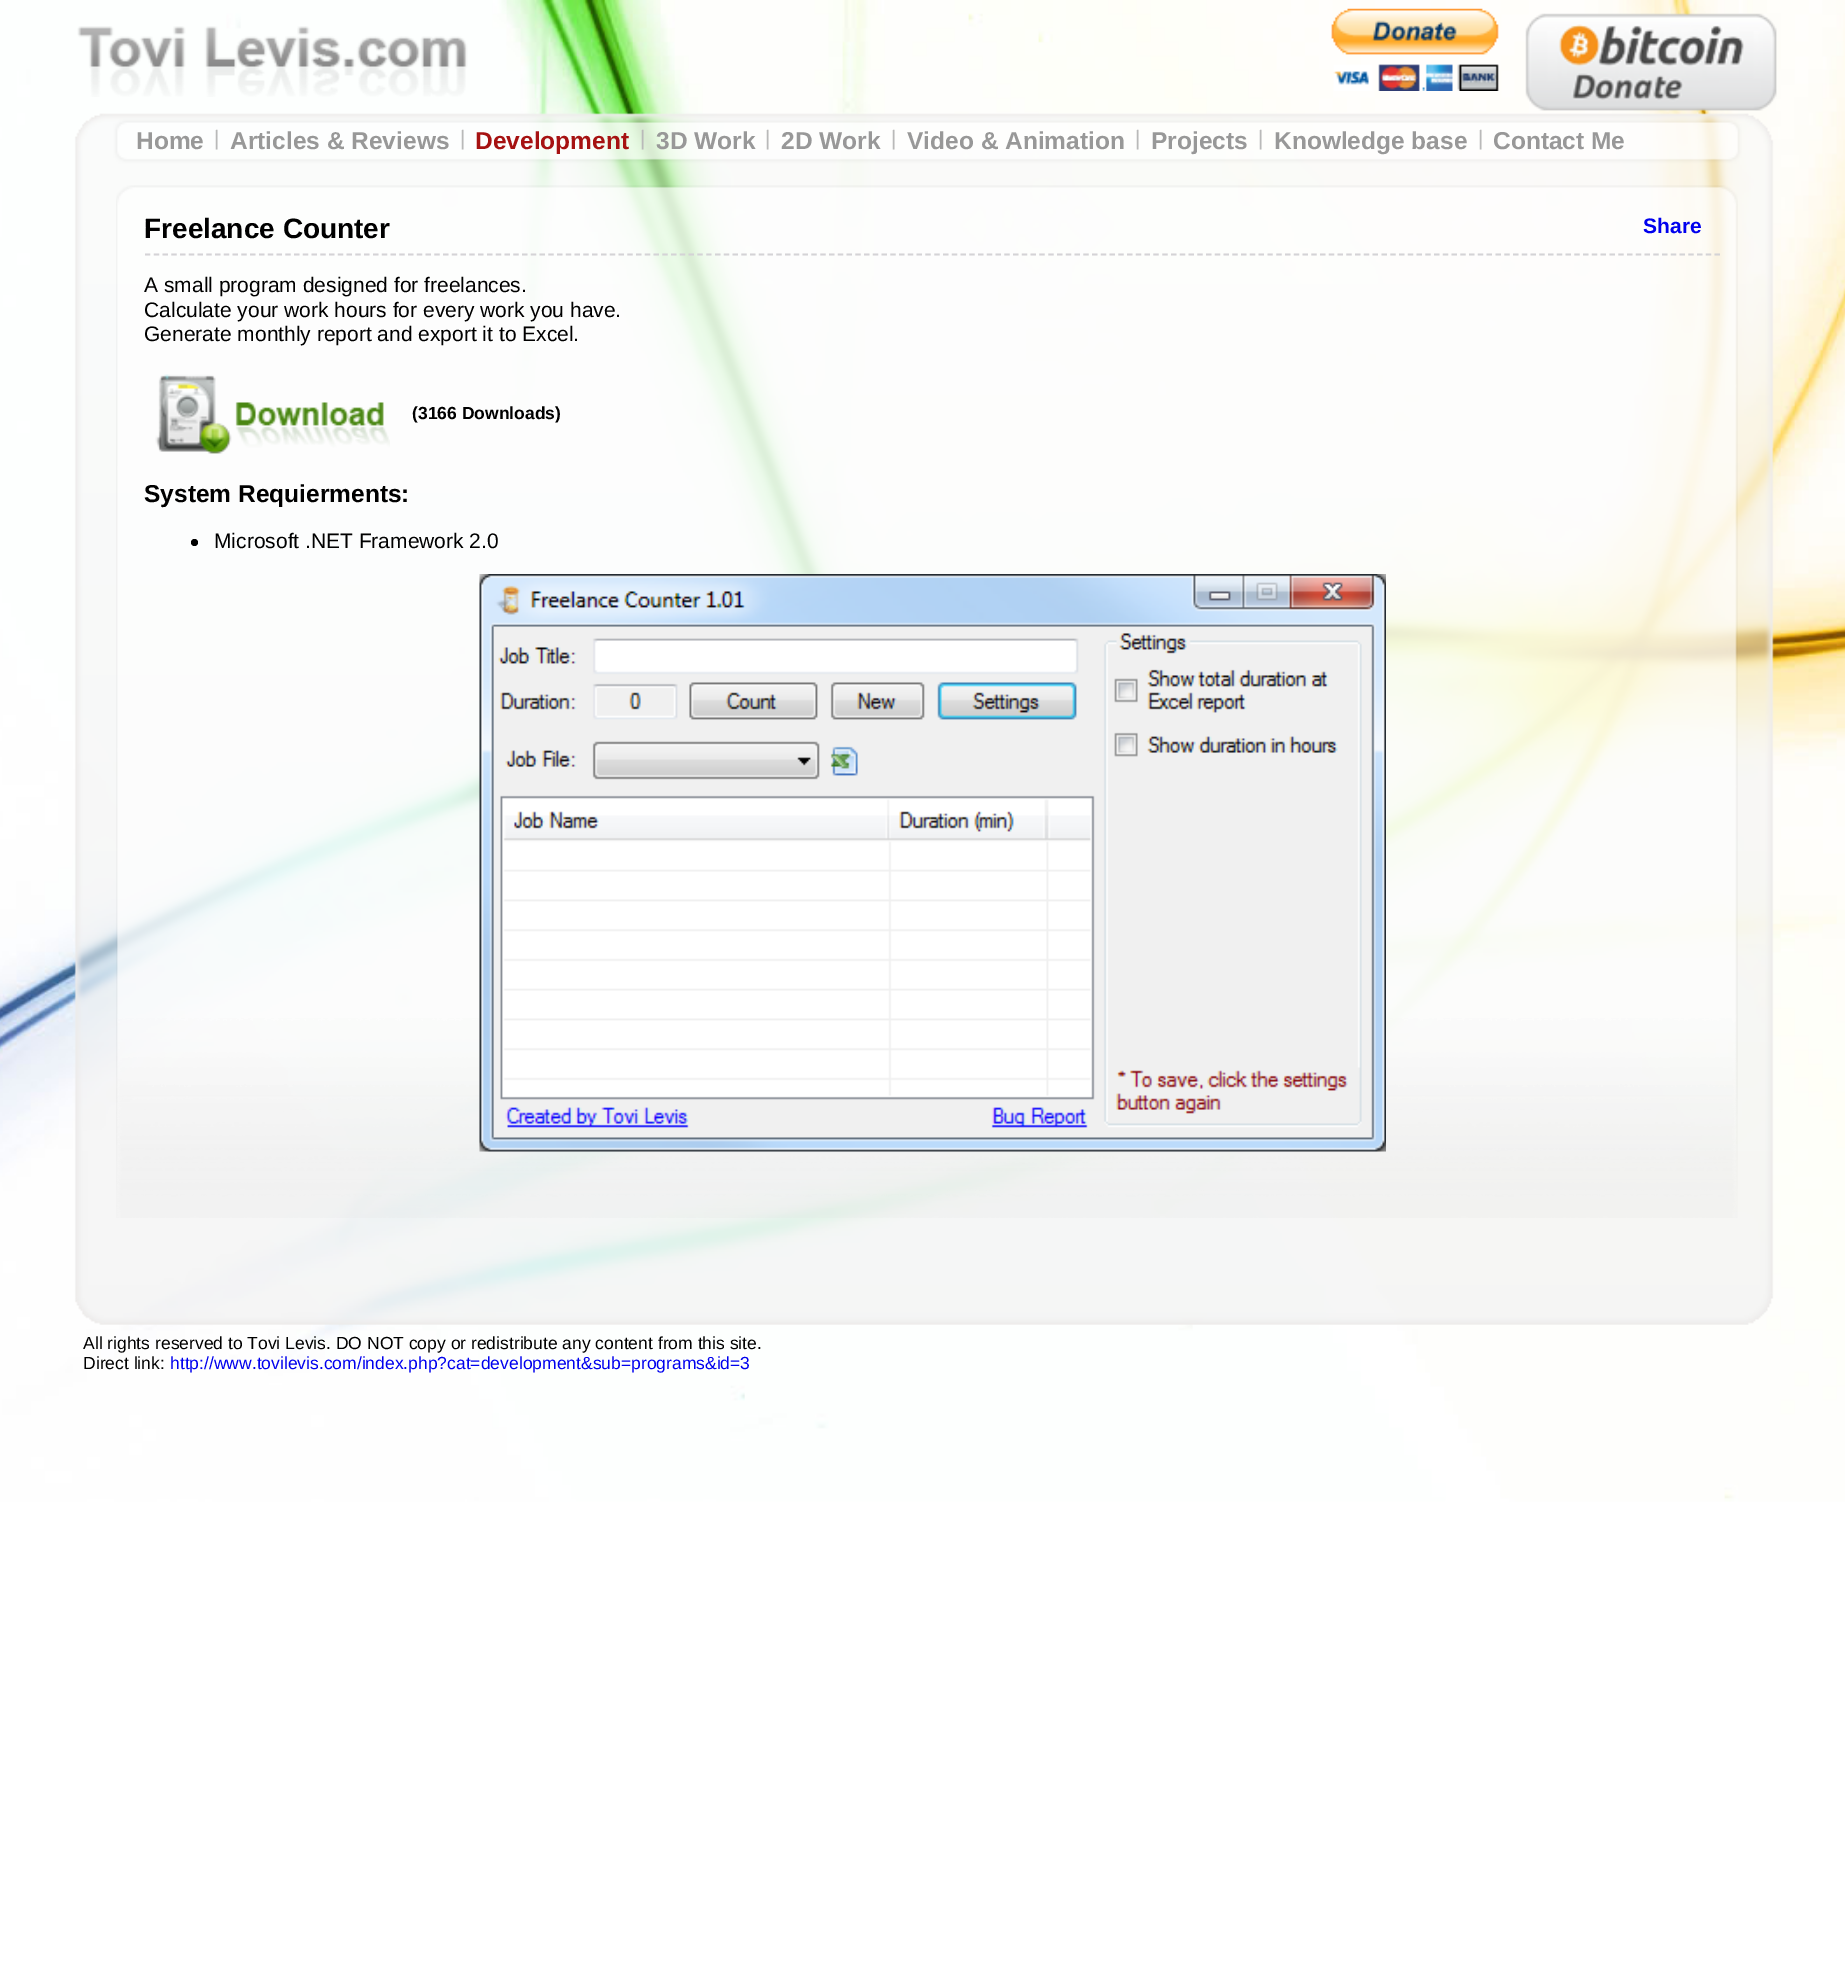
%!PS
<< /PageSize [1845 1970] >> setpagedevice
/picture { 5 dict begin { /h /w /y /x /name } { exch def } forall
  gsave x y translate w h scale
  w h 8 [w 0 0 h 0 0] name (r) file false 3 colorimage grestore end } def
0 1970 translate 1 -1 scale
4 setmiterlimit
1 setgray
0 0 1845 1970 rectfill
(img1.rgb) 0 0 1845 1502 picture
(img2.rgb) 77 26 391 71 picture
(img3.rgb) 1331 8 168 83 picture
(img4.rgb) 1525 13 252 98 picture
(img5.rgb) 74 113 1700 1212 picture
/LiberationSans-Bold [24.5 0 0 -24.5 0 0] selectfont
0.596 setgray
136 149 moveto (Home) show
/LiberationSans-Regular [21 0 0 -21 0 0] selectfont
0.725 setgray
214 145 moveto (|) show
/LiberationSans-Bold [24.5 0 0 -24.5 0 0] selectfont
0.596 setgray
230 149 moveto (Articles & Reviews) show
/LiberationSans-Regular [21 0 0 -21 0 0] selectfont
0.725 setgray
460 145 moveto (|) show
/LiberationSans-Bold [24.5 0 0 -24.5 0 0] selectfont
0.651 0.071 0.071 setrgbcolor
475 149 moveto (Development) show
/LiberationSans-Regular [21 0 0 -21 0 0] selectfont
0.725 setgray
640 145 moveto (|) show
/LiberationSans-Bold [24.5 0 0 -24.5 0 0] selectfont
0.596 setgray
656 149 moveto (3D Work) show
/LiberationSans-Regular [21 0 0 -21 0 0] selectfont
0.725 setgray
765 145 moveto (|) show
/LiberationSans-Bold [24.5 0 0 -24.5 0 0] selectfont
0.596 setgray
781 149 moveto (2D Work) show
/LiberationSans-Regular [21 0 0 -21 0 0] selectfont
0.725 setgray
891 145 moveto (|) show
/LiberationSans-Bold [24.5 0 0 -24.5 0 0] selectfont
0.596 setgray
907 149 moveto (Video & Animation) show
/LiberationSans-Regular [21 0 0 -21 0 0] selectfont
0.725 setgray
1135 145 moveto (|) show
/LiberationSans-Bold [24.5 0 0 -24.5 0 0] selectfont
0.596 setgray
1151 149 moveto (Projects) show
/LiberationSans-Regular [21 0 0 -21 0 0] selectfont
0.725 setgray
1258 145 moveto (|) show
/LiberationSans-Bold [24.5 0 0 -24.5 0 0] selectfont
0.596 setgray
1274 149 moveto (Knowledge base) show
/LiberationSans-Regular [21 0 0 -21 0 0] selectfont
0.725 setgray
1478 145 moveto (|) show
/LiberationSans-Bold [24.5 0 0 -24.5 0 0] selectfont
0.596 setgray
1493 149 moveto (Contact Me) show
(img6.rgb) 116 185 1622 1033 picture
0.831 0.827 0.839 setrgbcolor
1.8 setlinewidth
[5.25 3.52] 0 setdash
newpath 145 254.5 moveto 1720 254.5 lineto stroke
/LiberationSans-Bold [28 0 0 -28 0 0] selectfont
0 setgray
144 238 moveto (Freelance Counter) show
/LiberationSans-Bold [21 0 0 -21 0 0] selectfont
0 0 0.933 setrgbcolor
1643 233 moveto (Share) show
/LiberationSans-Regular [21 0 0 -21 0 0] selectfont
0 setgray
144 292 moveto (A small program designed for freelances.) show
144 317 moveto (Calculate your work hours for every work you have.) show
144 341 moveto (Generate monthly report and export it to Excel.) show
(img7.rgb) 155 374 235 80 picture
/LiberationSans-Bold [17.5 0 0 -17.5 0 0] selectfont
412 419 moveto (\(3166 Downloads\)) show
/LiberationSans-Bold [24.5 0 0 -24.5 0 0] selectfont
144 502 moveto (System Requierments:) show
newpath 194.5 542.5 3.5 0 360 arc closepath fill
/LiberationSans-Regular [21 0 0 -21 0 0] selectfont
214 548 moveto (Microsoft .NET Framework 2.0) show
(img8.rgb) 479 574 907 578 picture
/LiberationSans-Regular [17.5 0 0 -17.5 0 0] selectfont
83 1349 moveto (All rights reserved to Tovi Levis. DO NOT copy or redistribute any content from this site.) show
83 1369 moveto (Direct link:) show
0 0 0.933 setrgbcolor
170 1369 moveto (http://www.tovilevis.com/index.php?cat=development&sub=programs&id=3) show
showpage
